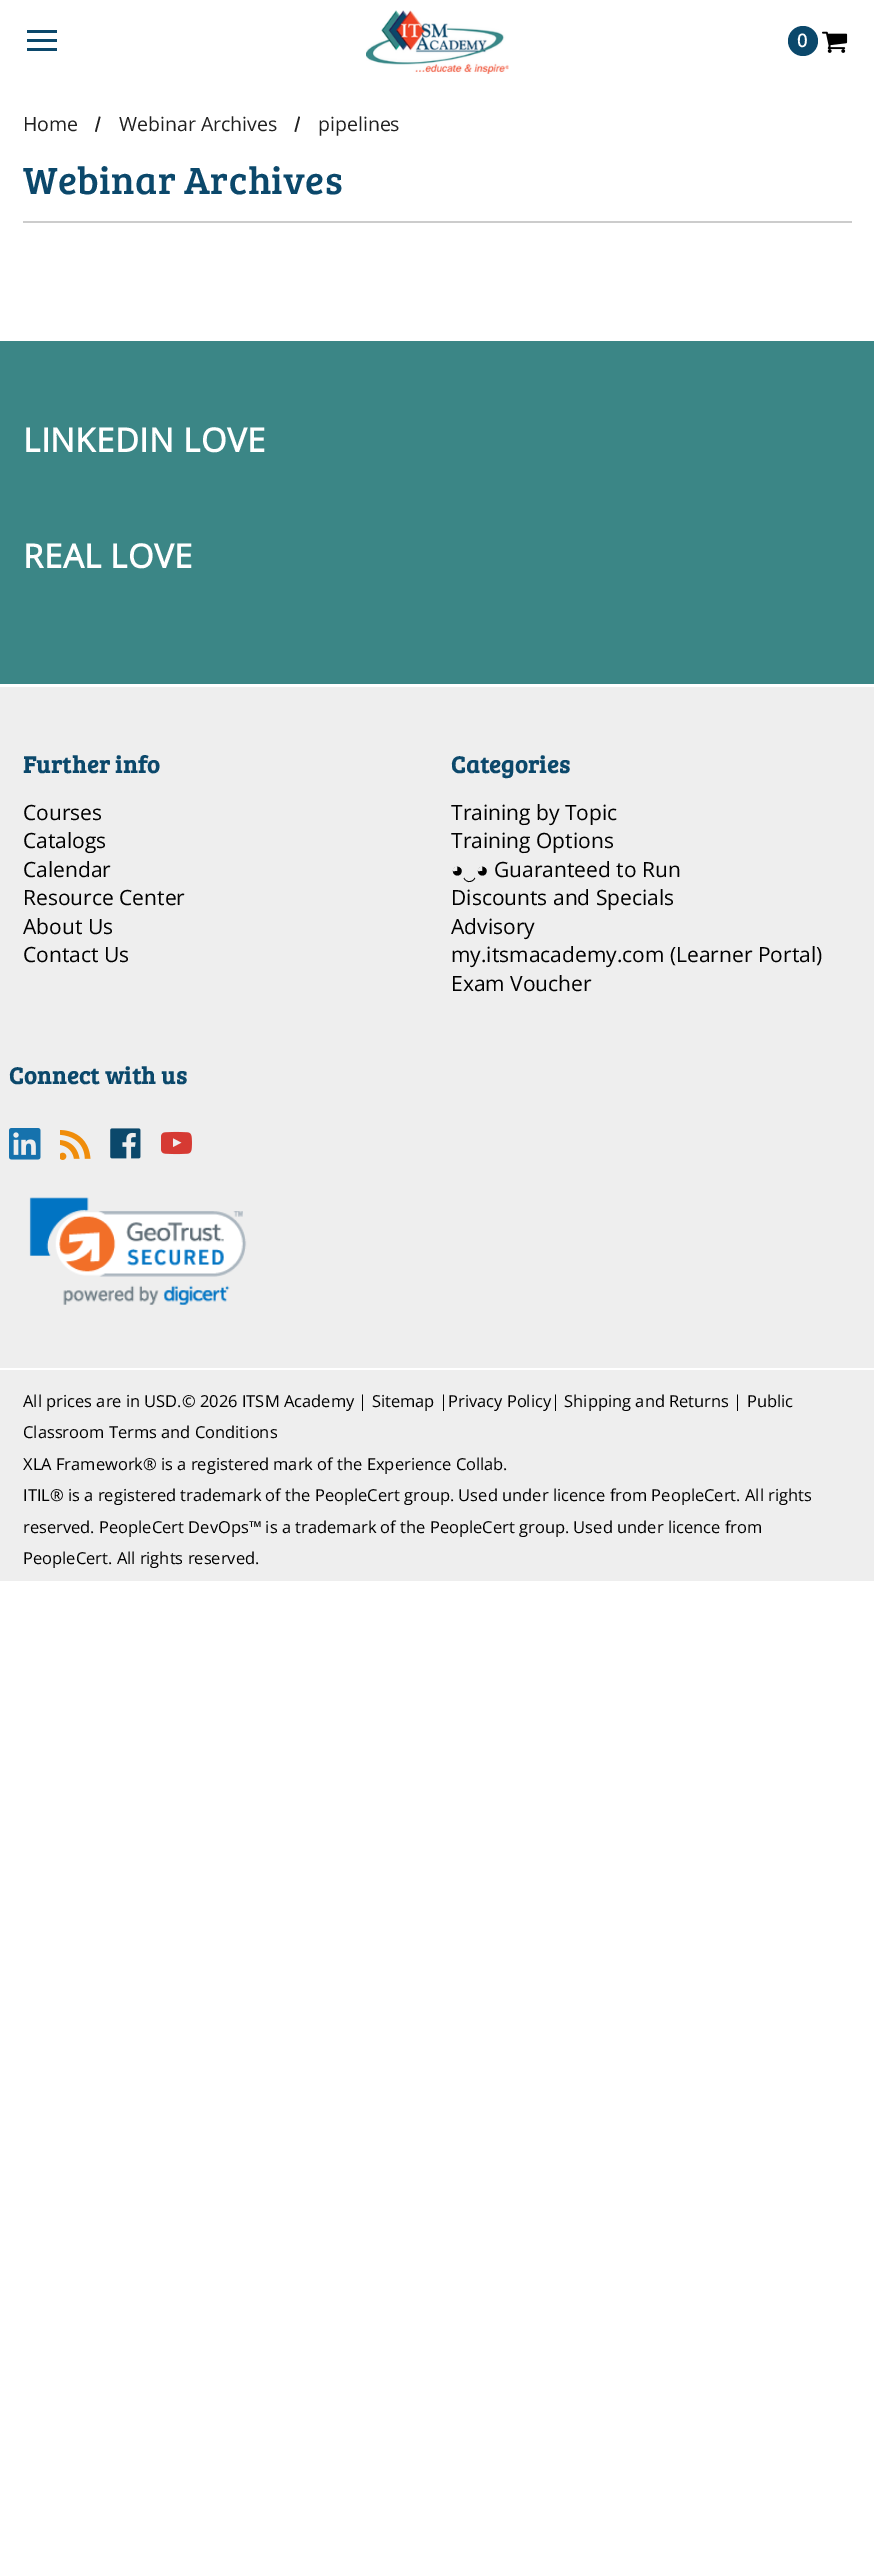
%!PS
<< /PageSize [874 2564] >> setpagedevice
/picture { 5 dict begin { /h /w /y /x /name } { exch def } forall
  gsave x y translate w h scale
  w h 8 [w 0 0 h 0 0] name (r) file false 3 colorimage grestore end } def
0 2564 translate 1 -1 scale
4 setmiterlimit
1 setgray
0 0 874 2564 rectfill
0.043 0.282 0.42 setrgbcolor
27 39 30 3 rectfill
27 30 30 3 rectfill
27 48 30 3 rectfill
(img1.rgb) 366 10 143 64 picture
newpath 803 41 15 0 360 arc closepath fill
/OpenSans-Bold [18 0 0 -18 0 0] selectfont
1 setgray
797 47 moveto (0) show
(img2.rgb) 822 31 26 22 picture
/OpenSans-Regular [19.5 0 0 -19.5 0 0] selectfont
0.125 setgray
23 131 moveto (Home) show
newpath 99 116.5 moveto 100.5 117 lineto 96.5 132 lineto 95 131.5 lineto closepath fill
119 131 moveto (Webinar Archives) show
newpath 298.5 116.5 moveto 300 117 lineto 296 132 lineto 294.5 131.5 lineto closepath fill
318 131 moveto (pipelines) show
0.8 setgray
23 221 829 2 rectfill
/BreeSerif-Regular [39 0 0 -39 0 0] selectfont
0.043 0.282 0.42 setrgbcolor
23 194 moveto 0.4 0 (Webinar Archives) ashow
0.231 0.525 0.525 setrgbcolor
0 341 874 343 rectfill
/OpenSans-Bold [33 0 0 -33 0 0] selectfont
1 setgray
23 452 moveto 0.4 0 (LINKEDIN LOVE) ashow
23 568 moveto 0.4 0 (REAL LOVE) ashow
0.933 setgray
0 687 874 681 rectfill
/BreeSerif-Bold [24 0 0 -24 0 0] selectfont
0.043 0.282 0.42 setrgbcolor
23 773 moveto 0.4 0 (Further info) ashow
/OpenSans-Regular [21 0 0 -21 0 0] selectfont
0 setgray
23 820 moveto (Courses) show
23 848 moveto (Catalogs) show
23 877 moveto (Calendar) show
23 905 moveto (Resource Center) show
23 934 moveto (About Us) show
23 962 moveto (Contact Us) show
/BreeSerif-Bold [24 0 0 -24 0 0] selectfont
0.043 0.282 0.42 setrgbcolor
451 773 moveto 0.4 0 (Categories) ashow
/OpenSans-Regular [21 0 0 -21 0 0] selectfont
0 setgray
451 820 moveto (Training by Topic) show
451 848 moveto (Training Options) show
/LiberationSans-Regular [21 0 0 -21 0 0] selectfont
451 877 moveto (◕) show
476 877 moveto (◕) show
/OpenSans-Regular [21 0 0 -21 0 0] selectfont
494 877 moveto (Guaranteed to Run) show
/NotoSans-Regular [21 0 0 -21 0 0] selectfont
463 877 moveto (‿) show
/OpenSans-Regular [21 0 0 -21 0 0] selectfont
451 905 moveto (Discounts and Specials) show
451 934 moveto (Advisory) show
451 962 moveto (my.itsmacademy.com \(Learner Portal\)) show
451 991 moveto (Exam Voucher) show
/BreeSerif-Bold [24 0 0 -24 0 0] selectfont
0.043 0.282 0.42 setrgbcolor
9 1084 moveto 0.4 0 (Connect with us) ashow
(img3.rgb) 9 1128 32 32 picture
(img4.rgb) 60 1130 31 30 picture
(img5.rgb) 110 1128 31 31 picture
(img6.rgb) 161 1131 31 24 picture
(img7.rgb) 29 1197 218 108 picture
0.933 setgray
0 1370 874 211 rectfill
/OpenSans-Regular [16.5 0 0 -16.5 0 0] selectfont
0 setgray
23 1407 moveto (All prices are in USD.© 2026 ITSM Academy | Sitemap |Privacy Policy| Shipping and Returns | Public) show
23 1438 moveto (Classroom Terms and Conditions) show
23 1470 moveto (XLA Framework® is a registered mark of the Experience Collab.) show
23 1501 moveto (ITIL® is a registered trademark of the PeopleCert group. Used under licence from PeopleCert. All rights) show
23 1533 moveto (reserved. PeopleCert DevOps™ is a trademark of the PeopleCert group. Used under licence from) show
23 1564 moveto (PeopleCert. All rights reserved.) show
showpage
